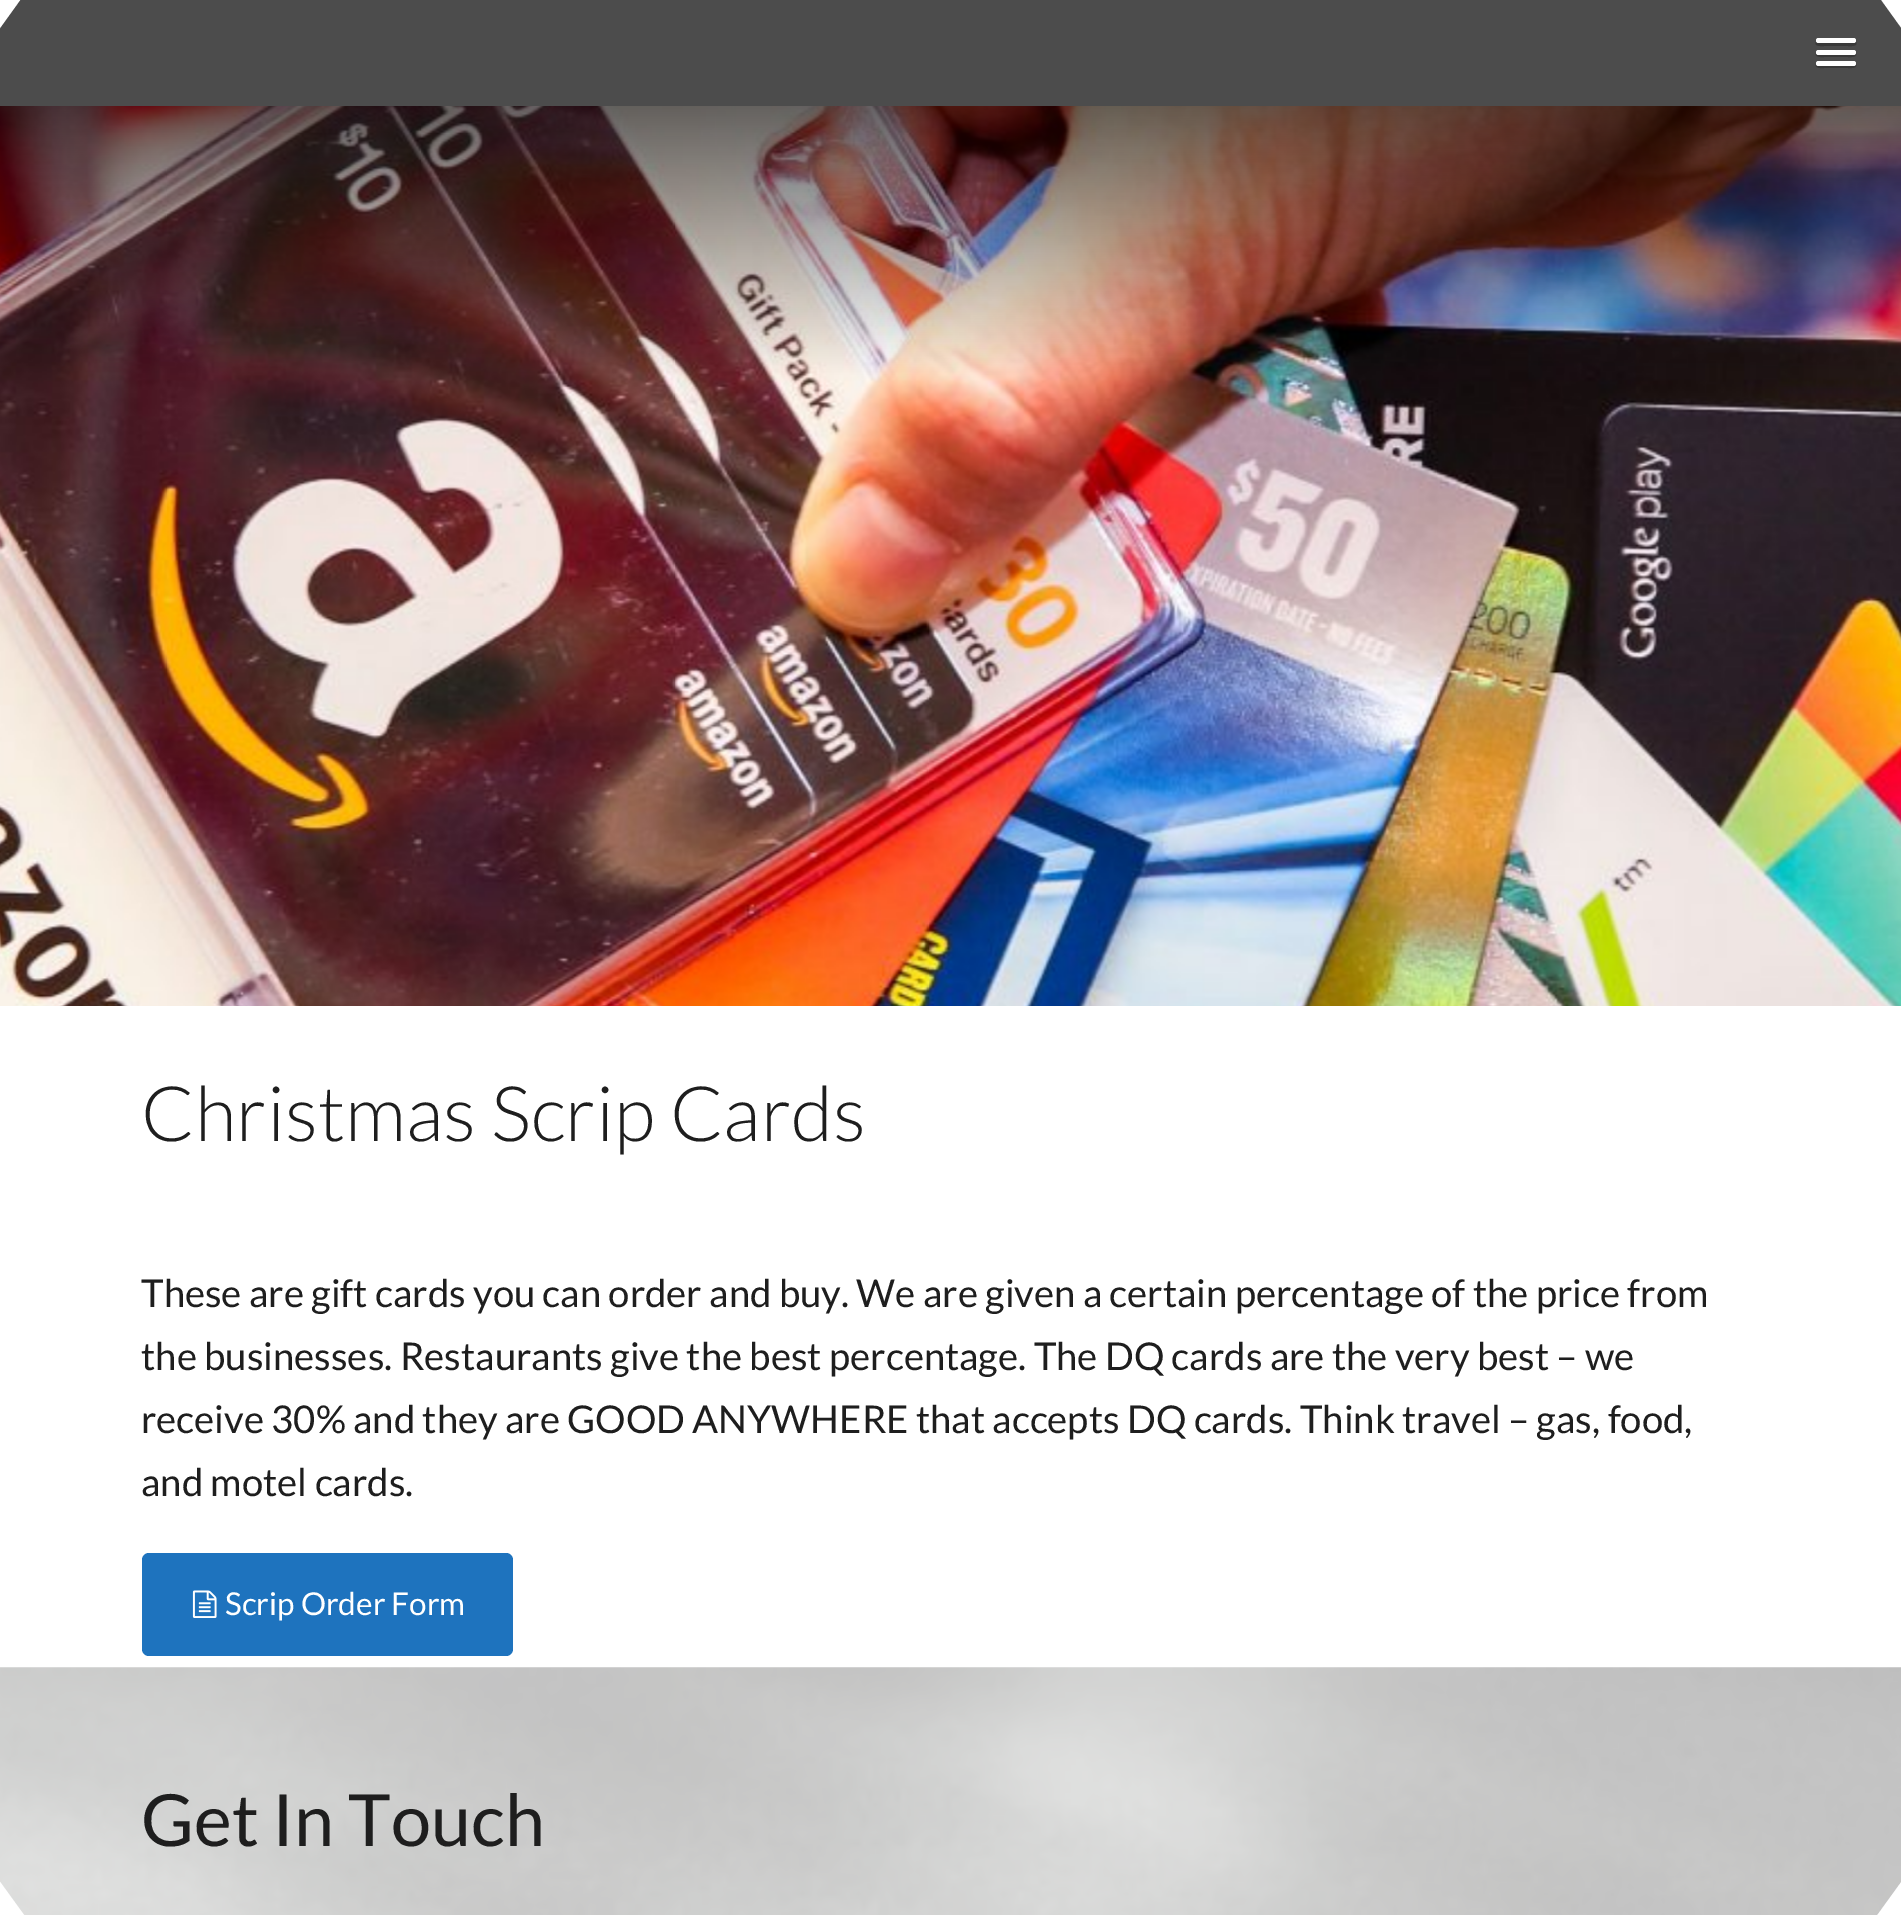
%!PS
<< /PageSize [1901 1915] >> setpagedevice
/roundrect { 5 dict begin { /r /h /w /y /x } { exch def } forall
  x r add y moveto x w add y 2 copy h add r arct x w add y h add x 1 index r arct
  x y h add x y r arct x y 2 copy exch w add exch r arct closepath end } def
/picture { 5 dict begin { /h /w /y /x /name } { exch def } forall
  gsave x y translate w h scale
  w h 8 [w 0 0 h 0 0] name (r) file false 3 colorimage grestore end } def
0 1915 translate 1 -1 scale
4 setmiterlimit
1 setgray
0 0 1901 1915 rectfill
0.298 setgray
0 0 1901 106 rectfill
0.224 setgray
newpath 1816 42 moveto 1813 47 1824 46 1824 46 curveto 1848 46 lineto 1848 46 1859 47 1856 42 curveto 1854 43 1818 43 1816 42 curveto closepath fill
1 setgray
1816 38 40 5 2.5 roundrect fill
0.224 setgray
newpath 1816 53 moveto 1814 58 1824 57 1824 57 curveto 1848 57 lineto 1848 57 1858 58 1856 53 curveto 1854 55 1818 55 1816 53 curveto closepath fill
1 setgray
1816 50 40 5 2.5 roundrect fill
0.224 setgray
newpath 1816 64 moveto 1814 69 1823 68 1824 68 curveto 1848 68 lineto 1849 68 1858 69 1856 64 curveto 1854 65 lineto 1818 65 lineto closepath fill
1 setgray
1816 61 40 5 2.5 roundrect fill
(img1.rgb) 0 106 1901 900 picture
/Lato-Light [76.5 0 0 -76.5 0 0] selectfont
0.118 setgray
141 1141 moveto (Christmas Scrip Cards) show
/Lato-Regular [38.25 0 0 -38.25 0 0] selectfont
141 1307 moveto (These are gift cards you can order and buy. We are given a certain percentage of the price from) show
141 1370 moveto (the businesses. Restaurants give the best percentage. The DQ cards are the very best – we) show
141 1433 moveto (receive 30% and they are GOOD ANYWHERE that accepts DQ cards. Think travel – gas, food,) show
141 1496 moveto (and motel cards.) show
0.118 0.451 0.745 setrgbcolor
142 1553 371 103 7 roundrect fill
(img2.rgb) 192 1590 25 28 picture
(img3.rgb) 0 1667 1901 248 picture
/Lato-Regular [72 0 0 -72 0 0] selectfont
0.118 setgray
141 1846 moveto (Get In Touch) show
1 setgray
newpath -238 -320 moveto -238 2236 lineto 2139 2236 lineto 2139 -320 lineto -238 -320 lineto 951 -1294 moveto 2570 958 lineto 951 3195 lineto -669 958 lineto 951 -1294 lineto fill
/Lato-Regular [31.5 0 0 -31.5 0 0] selectfont
225 1615 moveto (Scrip Order Form) show
showpage
